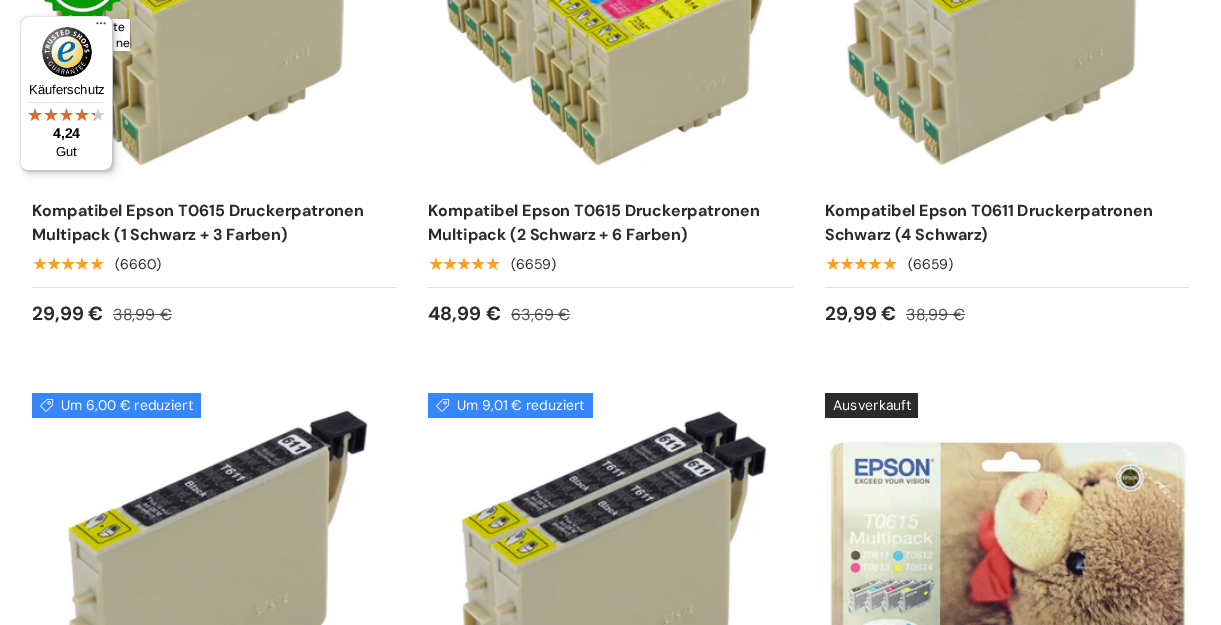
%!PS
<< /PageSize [1221 625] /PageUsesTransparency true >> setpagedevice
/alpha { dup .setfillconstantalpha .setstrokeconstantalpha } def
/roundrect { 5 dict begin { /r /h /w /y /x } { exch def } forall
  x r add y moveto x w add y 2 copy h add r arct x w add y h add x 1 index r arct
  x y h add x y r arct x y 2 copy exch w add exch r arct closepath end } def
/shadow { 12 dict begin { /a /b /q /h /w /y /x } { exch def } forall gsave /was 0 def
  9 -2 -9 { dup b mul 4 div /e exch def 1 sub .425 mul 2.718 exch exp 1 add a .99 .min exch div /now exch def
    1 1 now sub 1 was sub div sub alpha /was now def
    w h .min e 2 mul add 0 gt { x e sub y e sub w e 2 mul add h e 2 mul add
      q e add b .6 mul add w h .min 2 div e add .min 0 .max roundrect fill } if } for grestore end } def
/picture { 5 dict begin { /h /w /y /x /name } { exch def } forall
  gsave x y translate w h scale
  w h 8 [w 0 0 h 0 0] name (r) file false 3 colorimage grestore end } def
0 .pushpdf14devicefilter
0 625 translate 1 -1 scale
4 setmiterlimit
1 setgray
0 0 1221 625 rectfill
(img1.rgb) 50 0 295 166 picture
(img2.rgb) 44 0 77 16 picture
111 19 19 32 rectfill
/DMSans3-Regular [12 0 0 -12 0 0] selectfont
0 setgray
113 31 moveto (te) show
116 47 moveto (ne) show
/DMSans-Bold [16 0 0 -16 0 0] selectfont
0.165 0.169 0.165 setrgbcolor
32 216 moveto (Kompatibel Epson T0615 Druckerpatronen) show
32 240 moveto (Multipack \(1 Schwarz + 3 Farben\)) show
/DejaVuSans-Regular [18 0 0 -18 0 0] selectfont
1 0.624 0.11 setrgbcolor
32 270 moveto -2 0 (★★★★★) ashow
/DMSans-Regular [14 0 0 -14 0 0] selectfont
0.165 0.169 0.165 setrgbcolor
115 269 moveto (\(6660\)) show
0.875 setgray
32 287 364 1 rectfill
/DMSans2-Bold [19 0 0 -19 0 0] selectfont
0.165 0.169 0.165 setrgbcolor
32 320 moveto (29,99 €) show
/DMSans2-Regular [16 0 0 -16 0 0] selectfont
0.333 setgray
113 320 moveto (38,99 €) show
0.8 alpha
0.165 0.169 0.165 setrgbcolor
113 314 59 1 rectfill
1 alpha
(img3.rgb) 446 0 318 166 picture
/DMSans-Bold [16 0 0 -16 0 0] selectfont
428 216 moveto (Kompatibel Epson T0615 Druckerpatronen) show
428 240 moveto (Multipack \(2 Schwarz + 6 Farben\)) show
/DejaVuSans-Regular [18 0 0 -18 0 0] selectfont
1 0.624 0.11 setrgbcolor
428 270 moveto -2 0 (★★★★★) ashow
/DMSans-Regular [14 0 0 -14 0 0] selectfont
0.165 0.169 0.165 setrgbcolor
511 269 moveto (\(6659\)) show
0.875 setgray
428 287 365 1 rectfill
/DMSans2-Bold [19 0 0 -19 0 0] selectfont
0.165 0.169 0.165 setrgbcolor
428 320 moveto (48,99 €) show
/DMSans2-Regular [16 0 0 -16 0 0] selectfont
0.333 setgray
511 320 moveto (63,69 €) show
0.8 alpha
0.165 0.169 0.165 setrgbcolor
511 314 59 1 rectfill
1 alpha
(img4.rgb) 846 0 292 166 picture
/DMSans-Bold [16 0 0 -16 0 0] selectfont
825 216 moveto (Kompatibel Epson T0611 Druckerpatronen) show
825 240 moveto (Schwarz \(4 Schwarz\)) show
/DejaVuSans-Regular [18 0 0 -18 0 0] selectfont
1 0.624 0.11 setrgbcolor
825 270 moveto -2 0 (★★★★★) ashow
/DMSans-Regular [14 0 0 -14 0 0] selectfont
0.165 0.169 0.165 setrgbcolor
908 269 moveto (\(6659\)) show
0.875 setgray
825 287 364 1 rectfill
/DMSans2-Bold [19 0 0 -19 0 0] selectfont
0.165 0.169 0.165 setrgbcolor
825 320 moveto (29,99 €) show
/DMSans2-Regular [16 0 0 -16 0 0] selectfont
0.333 setgray
906 320 moveto (38,99 €) show
0.8 alpha
0.165 0.169 0.165 setrgbcolor
906 314 59 1 rectfill
1 alpha
(img6.rgb) 67 408 301 217 picture
0.208 0.525 1 setrgbcolor
32 393 169 25 rectfill
(img5.rgb) 40 398 14 14 picture
/DMSans2-Regular [14 0 0 -14 0 0] selectfont
1 setgray
61 410 moveto (Um 6,00 € reduziert) show
(img7.rgb) 456 411 311 214 picture
0.208 0.525 1 setrgbcolor
428 393 165 25 rectfill
(img5.rgb) 436 398 14 14 picture
1 setgray
457 410 moveto (Um 9,01 € reduziert) show
0.165 0.169 0.165 setrgbcolor
825 393 93 25 rectfill
1 setgray
833 410 moveto (Ausverkauft) show
(img8.rgb) 825 439 364 186 picture
0 setgray
23 19 93 155 8 4 0.15 shadow
21 17 93 155 8 1 0.15 shadow
1 setgray
20 16 93 155 8 roundrect fill
0.1 alpha
0 setgray
newpath 29 17 moveto 106 17 lineto 108 17 110 18 112 20 curveto 110 18 108 16 105 16 curveto 28 16 lineto 24 16 20 20 20 24 curveto 20 163 lineto 20 166 22 168 24 170 curveto 22 168 21 166 21 164 curveto 21 25 lineto 21 21 25 17 29 17 curveto closepath fill
0.2 alpha
newpath 21 167 moveto 23 169 25 171 28 171 curveto 105 171 lineto 109 171 113 167 113 163 curveto 113 24 lineto 113 21 111 19 109 17 curveto 111 19 112 21 112 23 curveto 112 162 lineto 112 166 108 170 104 170 curveto 27 170 lineto 25 170 23 169 21 167 curveto closepath fill
0.196 setgray
newpath 22 168 moveto 23 170 26 171 28 171 curveto 105 171 lineto 109 171 113 167 113 163 curveto 113 24 lineto 113 22 112 19 110 18 curveto 111 19 112 21 112 23 curveto 112 162 lineto 112 167 109 170 104 170 curveto 27 170 lineto 25 170 23 169 22 168 curveto closepath fill
0.3 alpha
1 setgray
newpath 112 24 moveto 112 19 109 16 104 16 curveto 105 16 lineto 109 16 113 20 113 24 curveto 113 163 lineto 113 167 109 171 105 171 curveto 28 171 lineto 24 171 20 167 20 163 curveto 20 162 lineto 20 167 23 170 28 170 curveto 104 170 lineto 109 170 112 167 112 162 curveto closepath fill
1 alpha
(img9.rgb) 96 22 10 3 picture
(img10.rgb) 42 27 50 50 picture
/LiberationSans-Regular [13 0 0 -13 0 0] selectfont
0 setgray
29 94 moveto (Käuferschutz) show
0.898 setgray
28 102 77 1 rectfill
(img11.rgb) 28 108 14 13 picture
(img11.rgb) 44 108 14 13 picture
(img12.rgb) 60 108 13 13 picture
(img11.rgb) 75 108 14 13 picture
(img11.rgb) 91 108 14 13 picture
(img13.rgb) 28 108 14 13 picture
(img13.rgb) 44 108 14 13 picture
(img14.rgb) 60 108 13 13 picture
(img13.rgb) 75 108 14 13 picture
(img15.rgb) 91 113 4 8 picture
/LiberationSans-Bold [14 0 0 -14 0 0] selectfont
0 setgray
53 138 moveto (4,24) show
/LiberationSans-Regular [13 0 0 -13 0 0] selectfont
56 156 moveto (Gut) show
.poppdf14devicefilter showpage
